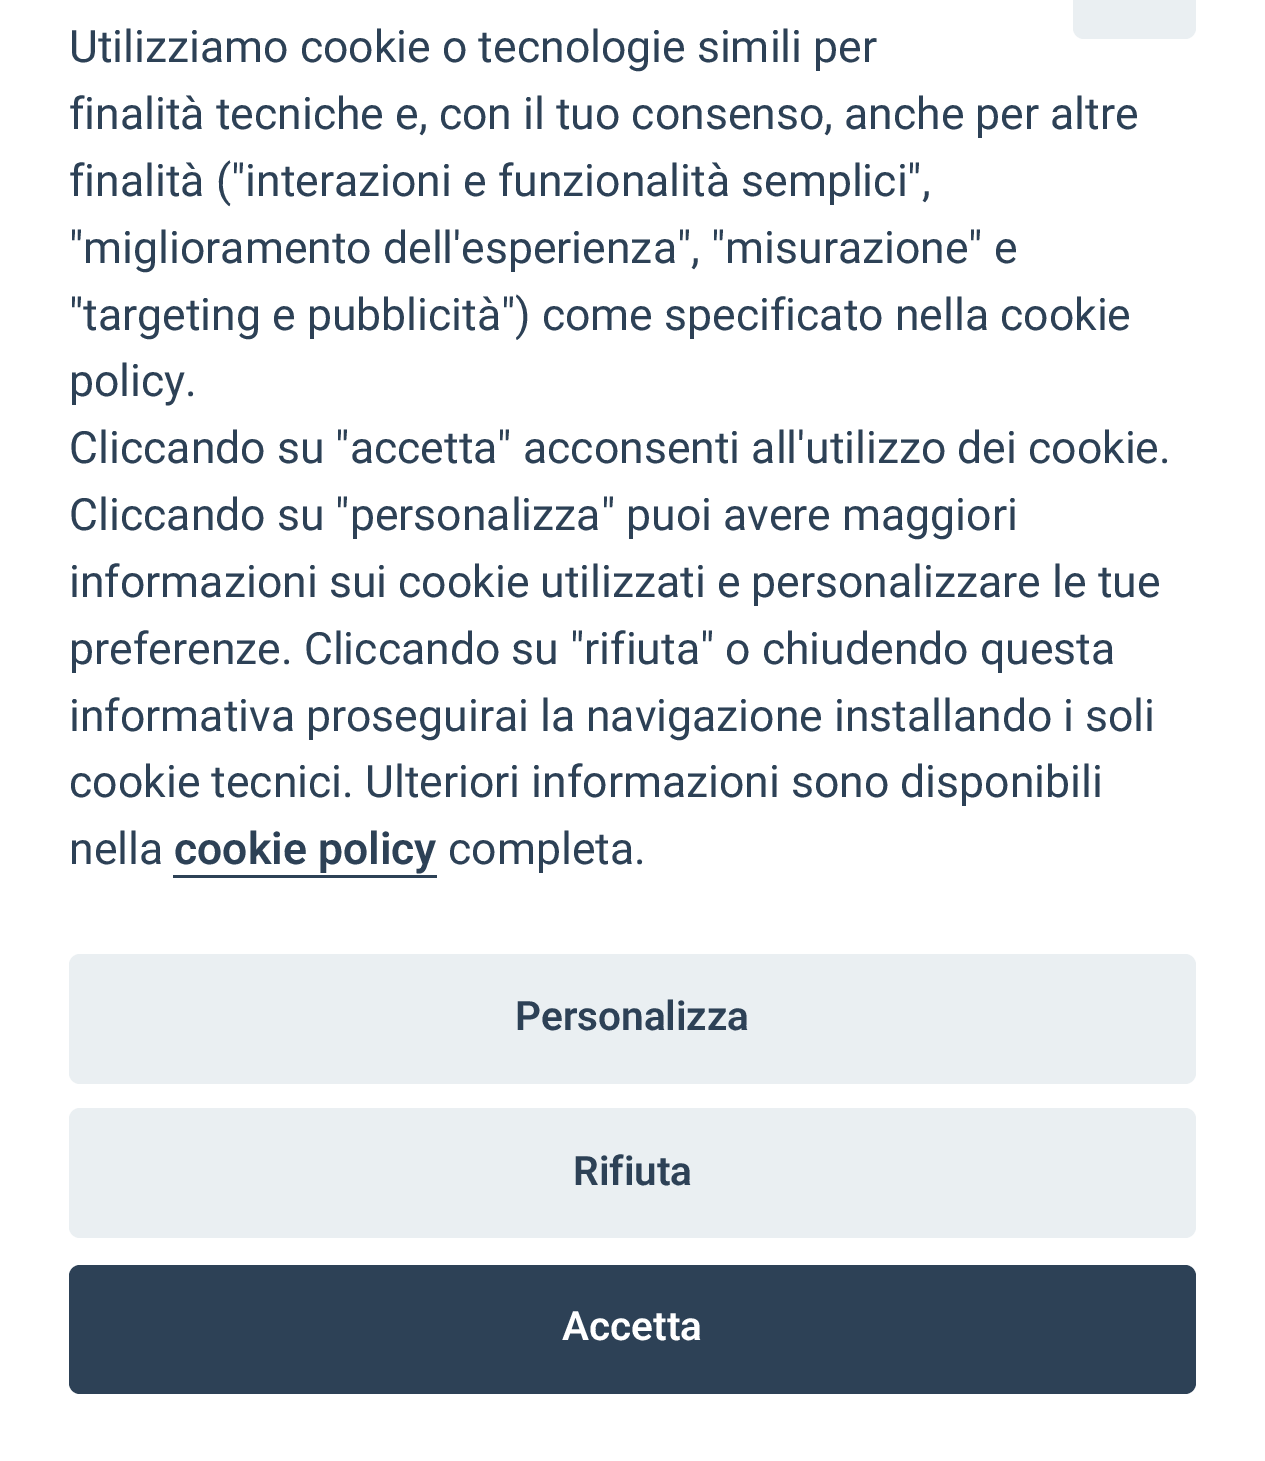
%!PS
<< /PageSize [1265 1461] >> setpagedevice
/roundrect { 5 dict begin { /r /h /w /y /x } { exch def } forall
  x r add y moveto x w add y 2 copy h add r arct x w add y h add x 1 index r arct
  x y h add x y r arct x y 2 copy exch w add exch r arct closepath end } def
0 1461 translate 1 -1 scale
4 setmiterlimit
1 setgray
0 0 1265 1461 rectfill
0.918 0.937 0.949 setrgbcolor
1073 -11 123 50 11 roundrect fill
/Roboto-Regular [44.55 0 0 -44.55 0 0] selectfont
0.176 0.255 0.337 setrgbcolor
69 62 moveto (Utilizziamo cookie o tecnologie simili per) show
69 129 moveto (finalità tecniche e, con il tuo consenso, anche per altre) show
69 196 moveto (finalità \("interazioni e funzionalità semplici",) show
69 263 moveto ("miglioramento dell'esperienza", "misurazione" e) show
69 330 moveto ("targeting e pubblicità"\) come specificato nella cookie) show
69 396 moveto (policy.) show
69 463 moveto (Cliccando su "accetta" acconsenti all'utilizzo dei cookie.) show
69 530 moveto (Cliccando su "personalizza" puoi avere maggiori) show
69 597 moveto (informazioni sui cookie utilizzati e personalizzare le tue) show
69 664 moveto (preferenze. Cliccando su "rifiuta" o chiudendo questa) show
69 731 moveto (informativa proseguirai la navigazione installando i soli) show
69 797 moveto (cookie tecnici. Ulteriori informazioni sono disponibili) show
69 864 moveto (nella) show
/Roboto-SemiBold [44.55 0 0 -44.55 0 0] selectfont
174 864 moveto (cookie policy) show
173 875 264 3 rectfill
/Roboto-Regular [44.55 0 0 -44.55 0 0] selectfont
448 864 moveto (completa.) show
0.918 0.937 0.949 setrgbcolor
69 954 1127 130 11 roundrect fill
/Roboto-SemiBold [40.5 0 0 -40.5 0 0] selectfont
0.176 0.255 0.337 setrgbcolor
515 1030 moveto (Personalizza) show
0.918 0.937 0.949 setrgbcolor
69 1108 1127 130 11 roundrect fill
0.176 0.255 0.337 setrgbcolor
573 1185 moveto (Rifiuta) show
69 1265 1127 129 11 roundrect fill
1 setgray
562 1340 moveto (Accetta) show
showpage
